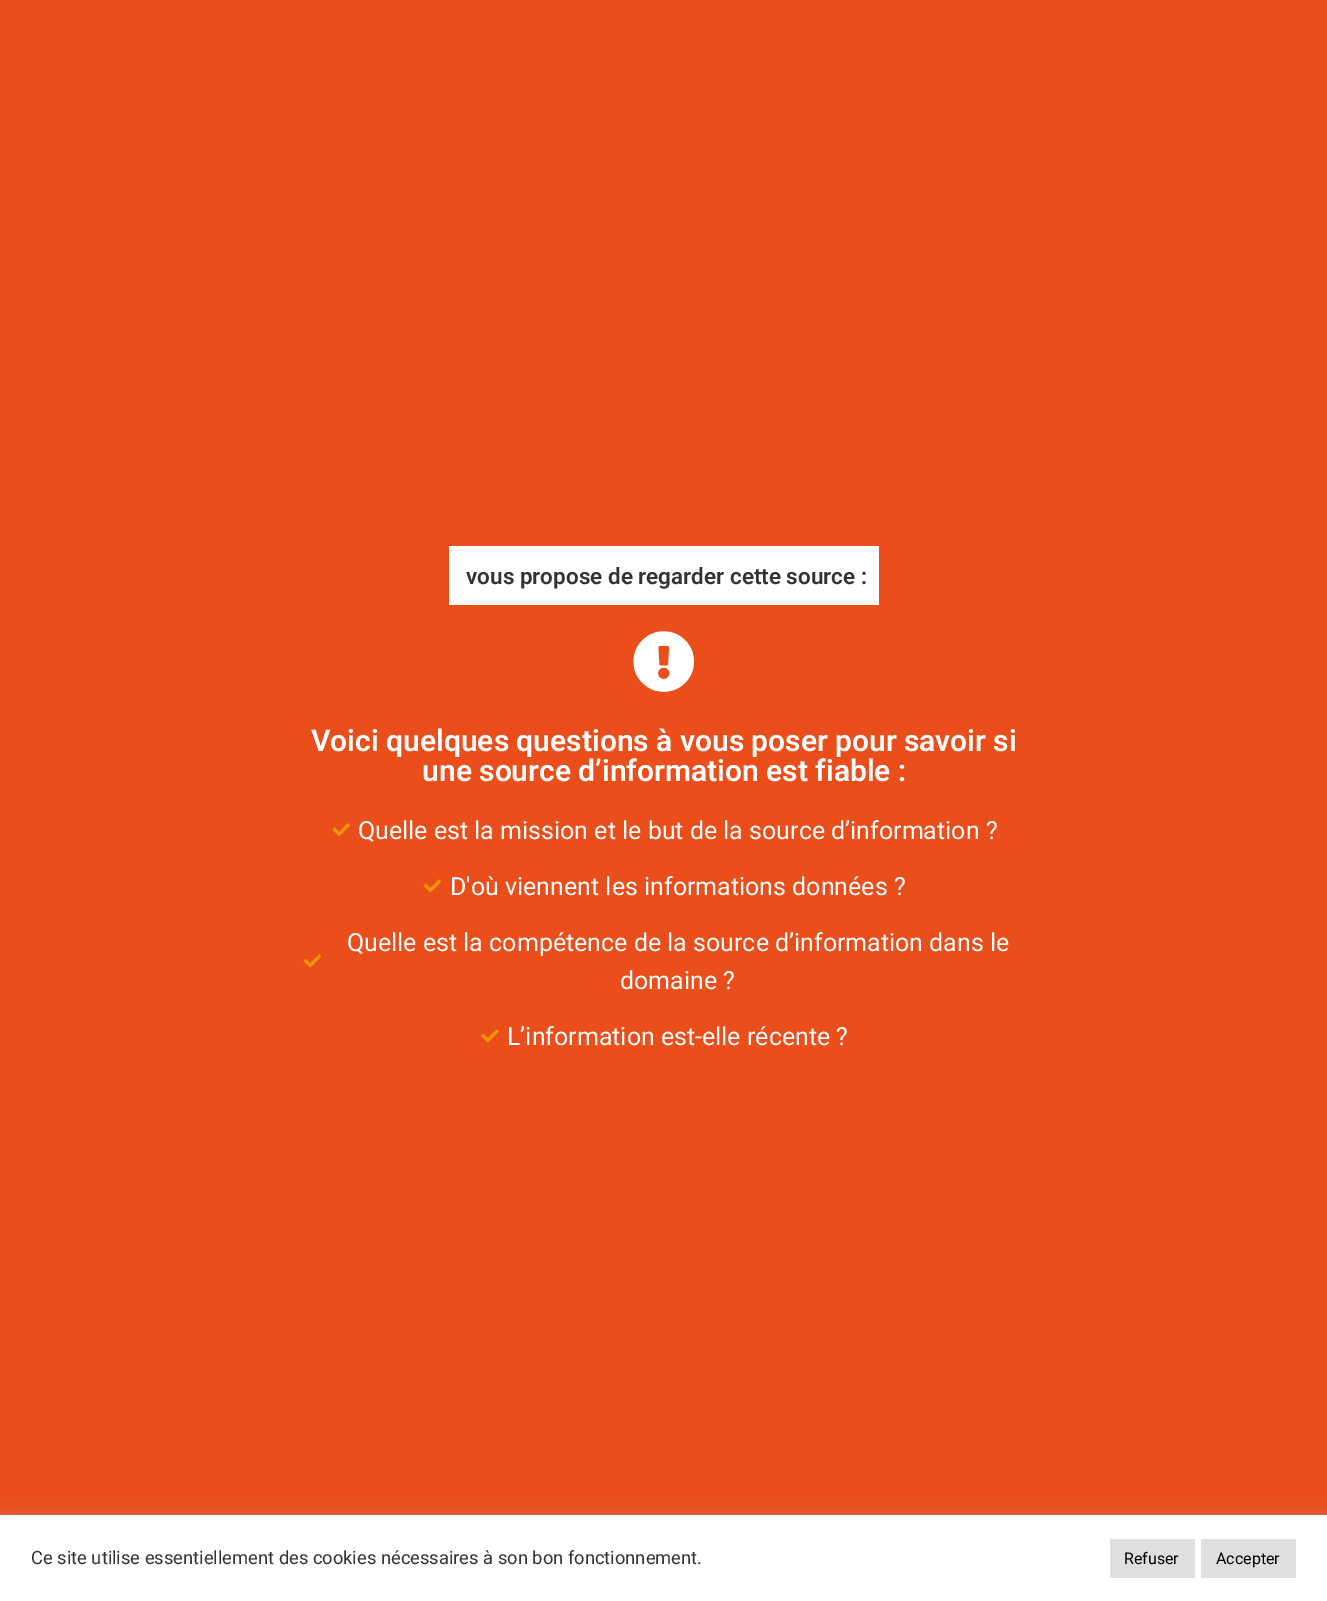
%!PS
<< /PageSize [1327 1601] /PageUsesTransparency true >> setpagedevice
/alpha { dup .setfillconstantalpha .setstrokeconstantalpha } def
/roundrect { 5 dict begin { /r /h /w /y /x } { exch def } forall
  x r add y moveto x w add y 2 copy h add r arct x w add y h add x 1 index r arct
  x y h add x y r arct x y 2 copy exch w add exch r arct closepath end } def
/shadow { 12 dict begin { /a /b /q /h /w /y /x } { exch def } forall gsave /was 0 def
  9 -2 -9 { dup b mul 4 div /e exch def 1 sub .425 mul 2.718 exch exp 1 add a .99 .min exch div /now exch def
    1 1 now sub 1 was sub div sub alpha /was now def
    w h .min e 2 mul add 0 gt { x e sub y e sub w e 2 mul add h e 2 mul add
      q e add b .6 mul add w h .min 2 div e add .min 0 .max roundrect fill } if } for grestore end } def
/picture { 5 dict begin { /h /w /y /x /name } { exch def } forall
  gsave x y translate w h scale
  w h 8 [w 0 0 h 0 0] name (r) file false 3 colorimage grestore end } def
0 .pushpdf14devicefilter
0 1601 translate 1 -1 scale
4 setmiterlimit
0.914 0.306 0.106 setrgbcolor
0 0 1327 1601 rectfill
1 setgray
449 546 430 59 rectfill
/Roboto-SemiBold [22.5 0 0 -22.5 0 0] selectfont
0.2 setgray
466 584 moveto (vous propose de regarder cette source :) show
(img1.rgb) 633 631 61 61 picture
/Roboto-SemiBold [30 0 0 -30 0 0] selectfont
1 setgray
311 751 moveto (Voici quelques questions à vous poser pour savoir si) show
422 781 moveto (une source d’information est fiable :) show
(img2.rgb) 332 823 18 14 picture
/Roboto-Regular [25 0 0 -25 0 0] selectfont
358 839 moveto (Quelle est la mission et le but de la source d’information ?) show
(img3.rgb) 423 879 19 14 picture
450 895 moveto (D'où viennent les informations données ?) show
(img3.rgb) 303 954 19 14 picture
347 951 moveto (Quelle est la compétence de la source d’information dans le) show
620 989 moveto (domaine ?) show
(img4.rgb) 481 1029 18 14 picture
507 1045 moveto (L’information est-elle récente ?) show
0.675 0.671 0.671 setrgbcolor
0 1514 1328 86 0 6 0.3 shadow
1 setgray
0 1515 1327 86 rectfill
/Roboto-Regular [18.35 0 0 -18.35 0 0] selectfont
0.2 setgray
31 1564 moveto (Ce site utilise essentiellement des cookies nécessaires à son bon fonctionnement.) show
0.871 0.875 0.878 setrgbcolor
1110 1539 85 39 rectfill
/Roboto-Regular [16 0 0 -16 0 0] selectfont
0 setgray
1124 1564 moveto (Refuser) show
0.871 0.875 0.878 setrgbcolor
1201 1539 95 39 rectfill
0 setgray
1216 1564 moveto (Accepter) show
.poppdf14devicefilter showpage
